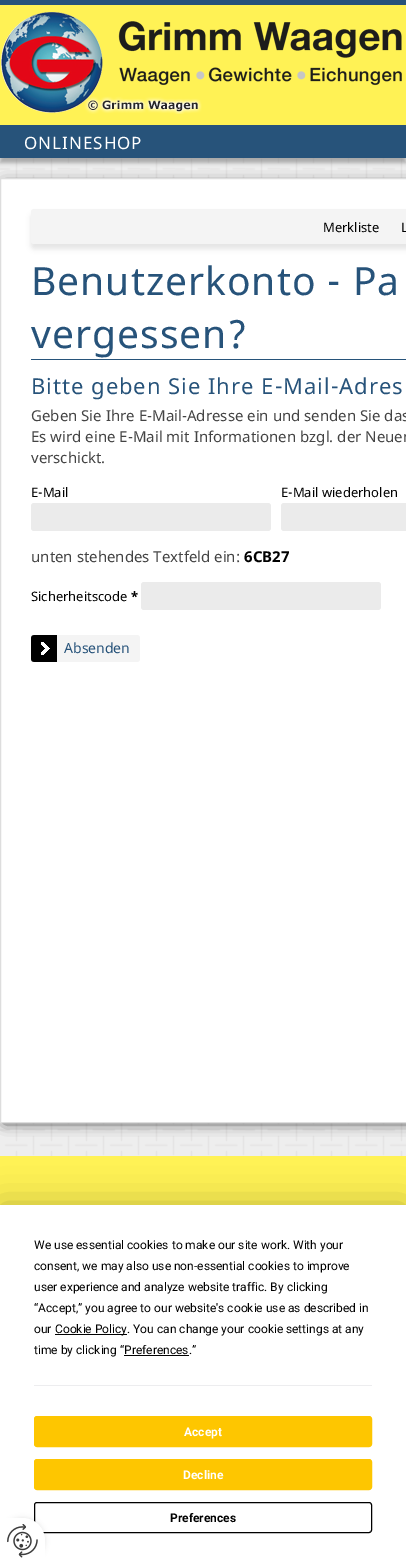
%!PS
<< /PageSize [406 1563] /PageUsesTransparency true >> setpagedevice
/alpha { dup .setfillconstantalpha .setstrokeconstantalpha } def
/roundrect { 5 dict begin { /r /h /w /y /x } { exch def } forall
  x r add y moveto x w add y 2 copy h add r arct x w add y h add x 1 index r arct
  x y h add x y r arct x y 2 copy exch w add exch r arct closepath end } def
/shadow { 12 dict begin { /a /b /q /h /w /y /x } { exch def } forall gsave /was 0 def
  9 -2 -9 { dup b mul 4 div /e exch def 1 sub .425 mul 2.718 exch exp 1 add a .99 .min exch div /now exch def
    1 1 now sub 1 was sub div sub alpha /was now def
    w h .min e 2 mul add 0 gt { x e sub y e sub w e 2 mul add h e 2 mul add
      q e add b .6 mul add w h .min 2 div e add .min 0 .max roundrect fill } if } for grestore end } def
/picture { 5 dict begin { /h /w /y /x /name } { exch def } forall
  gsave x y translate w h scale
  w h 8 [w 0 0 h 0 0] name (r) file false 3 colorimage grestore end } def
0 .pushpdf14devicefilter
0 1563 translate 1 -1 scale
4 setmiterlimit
1 setgray
0 0 406 1563 rectfill
(img2.rgb) 0 158 406 998 picture
0 setgray
0 130 406 33 0 2 0.29 shadow
1 0.949 0.333 setrgbcolor
0 5 406 120 rectfill
0.153 0.325 0.478 setrgbcolor
0 0 406 5 rectfill
(img1.rgb) 1 12 401 102 picture
0 125 406 33 rectfill
/NotoSans-Regular [17 0 0 -17 0 0] selectfont
1 setgray
24 149 moveto 1 0 (ONLINESHOP) ashow
0 setgray
5 186 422 935 0 7 1 shadow
1 setgray
newpath 0.5 178.5 moveto 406.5 178.5 lineto 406.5 1122.5 lineto 0.5 1122.5 lineto closepath gsave fill grestore
0.867 setgray
stroke
0 setgray
31 214 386 35 3 2.5 0.1 shadow
0.957 setgray
31 209 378 35 3 roundrect fill
/NotoSans-Regular [13 0 0 -13 0 0] selectfont
0 setgray
323 232 moveto (Merkliste) show
401 232 moveto (L) show
0.153 0.325 0.478 setrgbcolor
31 359 375 1 rectfill
/NotoSans-Regular [39 0 0 -39 0 0] selectfont
31 295 moveto 1 0 (Benutzerkonto - Pa) ashow
31 348 moveto 1 0 (vergessen?) ashow
/NotoSans-Regular [22 0 0 -22 0 0] selectfont
31 394 moveto 1 0 (Bitte geben Sie Ihre E-Mail-Adres) ashow
/NotoSans-Regular [15 0 0 -15 0 0] selectfont
0.267 setgray
31 421 moveto (Geben Sie Ihre E-Mail-Adresse ein und senden Sie das) show
31 442 moveto (Es wird eine E-Mail mit Informationen bzgl. der Neuer) show
31 463 moveto (verschickt.) show
/NotoSans-Regular [13 0 0 -13 0 0] selectfont
0 setgray
31 497 moveto (E-Mail) show
0.922 setgray
31 503 240 28 3 roundrect fill
0 setgray
281 497 moveto (E-Mail wiederholen) show
0.922 setgray
281 503 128 28 3 roundrect fill
/NotoSans-Regular [15 0 0 -15 0 0] selectfont
0.267 setgray
31 562 moveto (unten stehendes Textfeld ein:) show
/NotoSans-Bold [15 0 0 -15 0 0] selectfont
0 setgray
244 562 moveto (6CB27) show
/NotoSans-Regular [13 0 0 -13 0 0] selectfont
31 601 moveto (Sicherheitscode) show
/NotoSans-Bold [13 0 0 -13 0 0] selectfont
131 601 moveto (*) show
0.922 setgray
141 582 240 28 3 roundrect fill
0.957 setgray
31 635 109 27 3 roundrect fill
(img3.rgb) 31 635 26 27 picture
/NotoSans-Regular [14 0 0 -14 0 0] selectfont
0.153 0.325 0.478 setrgbcolor
64 653 moveto (Absenden) show
1 0.949 0.333 setrgbcolor
0 1156 406 49 rectfill
0 setgray
0 1205 406 358 0 17.5 0.25 shadow
1 setgray
0 1205 406 358 rectfill
/Roboto-Regular [12 0 0 -12 0 0] selectfont
0 setgray
34 1249 moveto (We use essential cookies to make our site work. With your) show
34 1270 moveto (consent, we may also use non-essential cookies to improve) show
34 1291 moveto (user experience and analyze website traffic. By clicking) show
34 1312 moveto (“Accept,” you agree to our website's cookie use as described in) show
34 1333 moveto (our) show
55 1334 72 1 rectfill
55 1333 moveto (Cookie Policy. You can change your cookie settings at any) show
34 1354 moveto (time by clicking “Preferences.”) show
124 1355 65 1 rectfill
0.929 0.929 0.937 setrgbcolor
34 1385 338 1 rectfill
0.996 0.776 0 setrgbcolor
34.5 1416.5 337 30 2.5 roundrect gsave fill grestore
stroke
/Roboto-Bold [12 0 0 -12 0 0] selectfont
1 setgray
184 1436 moveto (Accept) show
0.996 0.776 0 setrgbcolor
34.5 1459.5 337 30 2.5 roundrect gsave fill grestore
stroke
1 setgray
183 1479 moveto (Decline) show
0 setgray
34.5 1502.5 337 30 2.5 roundrect stroke
170 1522 moveto (Preferences) show
0 1518 45 45 22.5 2.5 0.1 shadow
1 setgray
newpath 2 1518 moveto 22.5 1518 lineto 35 1518 45 1528 45 1540.5 curveto 45 1561 lineto 45 1562 44 1563 43 1563 curveto 2 1563 lineto 1 1563 0 1562 0 1561 curveto 0 1520 lineto 0 1519 1 1518 2 1518 curveto closepath fill
(img4.rgb) 7 1524 31 34 picture
.poppdf14devicefilter showpage
